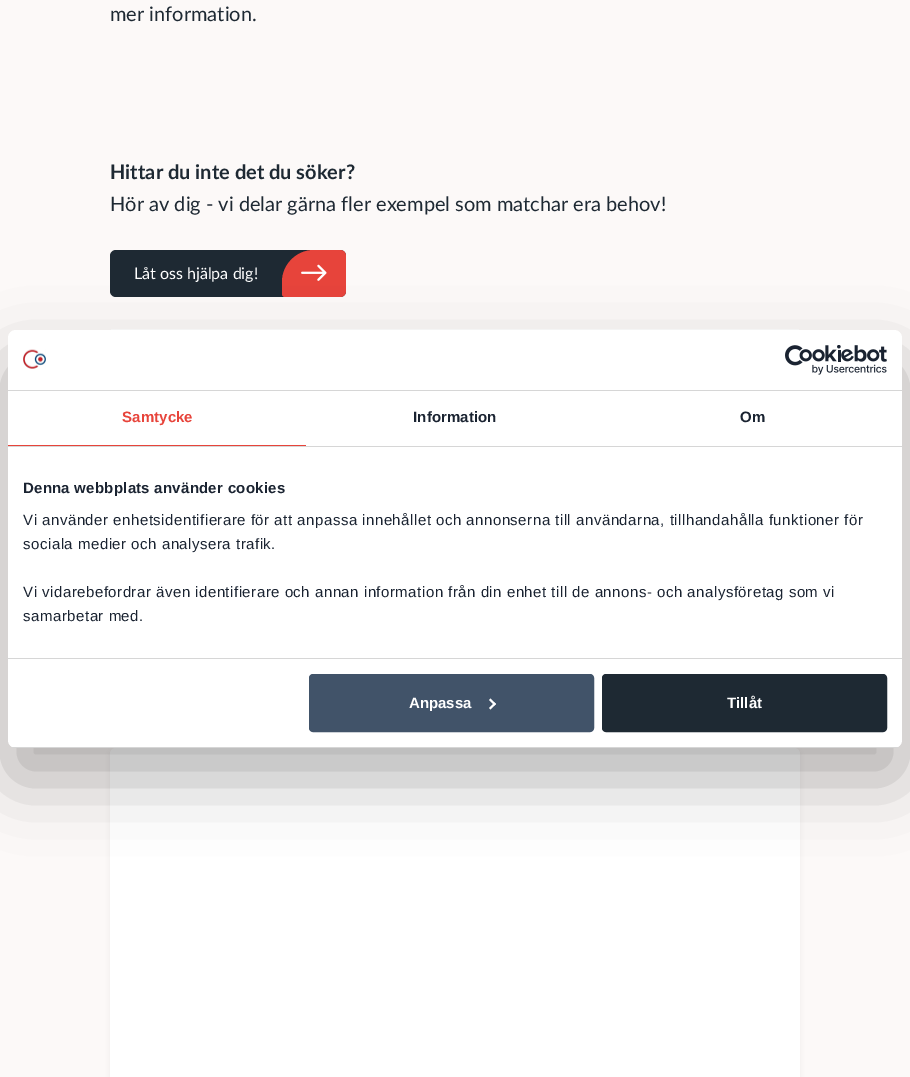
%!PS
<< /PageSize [910 1077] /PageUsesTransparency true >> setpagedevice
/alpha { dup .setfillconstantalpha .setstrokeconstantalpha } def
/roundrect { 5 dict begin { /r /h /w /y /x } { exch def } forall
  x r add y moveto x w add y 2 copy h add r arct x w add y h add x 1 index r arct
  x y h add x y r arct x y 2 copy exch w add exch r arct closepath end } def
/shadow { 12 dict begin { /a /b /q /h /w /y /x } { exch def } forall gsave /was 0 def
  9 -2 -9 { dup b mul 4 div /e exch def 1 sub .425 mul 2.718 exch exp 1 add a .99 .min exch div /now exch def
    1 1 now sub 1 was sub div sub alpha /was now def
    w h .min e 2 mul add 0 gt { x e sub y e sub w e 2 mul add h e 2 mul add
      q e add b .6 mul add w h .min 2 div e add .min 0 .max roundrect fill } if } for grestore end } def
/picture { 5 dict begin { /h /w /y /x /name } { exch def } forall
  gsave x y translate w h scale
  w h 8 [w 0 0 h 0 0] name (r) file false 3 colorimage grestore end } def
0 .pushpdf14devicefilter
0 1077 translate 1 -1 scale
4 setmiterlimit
0.988 0.976 0.973 setrgbcolor
0 0 910 1077 rectfill
/Lato-Regular [20 0 0 -20 0 0] selectfont
0.118 0.161 0.2 setrgbcolor
110 21 moveto (mer information.) show
/Lato-Bold [20 0 0 -20 0 0] selectfont
110 179 moveto (Hittar du inte det du söker?) show
/Lato-Regular [20 0 0 -20 0 0] selectfont
110 211 moveto (Hör av dig - vi delar gärna fler exempel som matchar era behov!) show
110 250 236 47 6 roundrect fill
0.906 0.267 0.231 setrgbcolor
newpath 314 250 moveto 340 250 lineto 343.5 250 346 252.5 346 256 curveto 346 291 lineto 346 294.5 343.5 297 340 297 curveto 285 297 lineto 283.5 297 282 295.5 282 294 curveto 282 282 lineto 282 264.5 296.5 250 314 250 curveto closepath fill
/Lato-Regular [16 0 0 -16 0 0] selectfont
1 setgray
134 279 moveto (Låt oss hjälpa dig!) show
(img1.rgb) 301 264 26 17 picture
111 329 688 1 rectfill
0 setgray
110 750 690 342 6 3 0.05 shadow
1 setgray
110 748 690 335 6 roundrect fill
0 setgray
8 362 894 418 8 34 0.3 shadow
1 setgray
8 330 894 418 8 roundrect fill
0.839 setgray
8 390 894 1 rectfill
(img2.rgb) 23 349 23 20 picture
(img3.rgb) 785 345 102 30 picture
8 446 894 1 rectfill
0.906 0.267 0.231 setrgbcolor
8 445 298 1 rectfill
/LiberationSans-Bold [15 0 0 -15 0 0] selectfont
122 422 moveto 0.1 0 (Samtycke) ashow
0.102 0.137 0.192 setrgbcolor
413 422 moveto 0.1 0 (Information) ashow
740 422 moveto 0.1 0 (Om) ashow
0.839 setgray
8 658 894 1 rectfill
0.102 0.137 0.192 setrgbcolor
23 493 moveto 0.25 0 (Denna webbplats använder cookies) ashow
/LiberationSans-Regular [15 0 0 -15 0 0] selectfont
23 525 moveto 0.5 0 (Vi använder enhetsidentifierare för att anpassa innehållet och annonserna till användarna, tillhandahålla funktioner för) ashow
23 549 moveto 0.5 0 (sociala medier och analysera trafik.) ashow
23 597 moveto 0.5 0 (Vi vidarebefordrar även identifierare och annan information från din enhet till de annons- och analysföretag som vi) ashow
23 621 moveto 0.5 0 (samarbetar med.) ashow
gsave
8 330 894 418 8 roundrect clip newpath
0.839 setgray
8 747 894 1 rectfill
grestore
0.255 0.325 0.412 setrgbcolor
310 675 283 56 3 roundrect gsave fill grestore
2 setlinewidth
stroke
/LiberationSans-Bold [15 0 0 -15 0 0] selectfont
1 setgray
409 708 moveto (Anpassa) show
newpath 490.5 698.5 moveto 496 704 lineto 494.5 705.5 lineto 489 700 lineto closepath fill
newpath 494.5 702.5 moveto 496 704 lineto 490.5 709.5 lineto 489 708 lineto closepath fill
0.118 0.161 0.2 setrgbcolor
603 675 283 56 3 roundrect gsave fill grestore
stroke
1 setgray
727 708 moveto (Tillåt) show
.poppdf14devicefilter showpage
